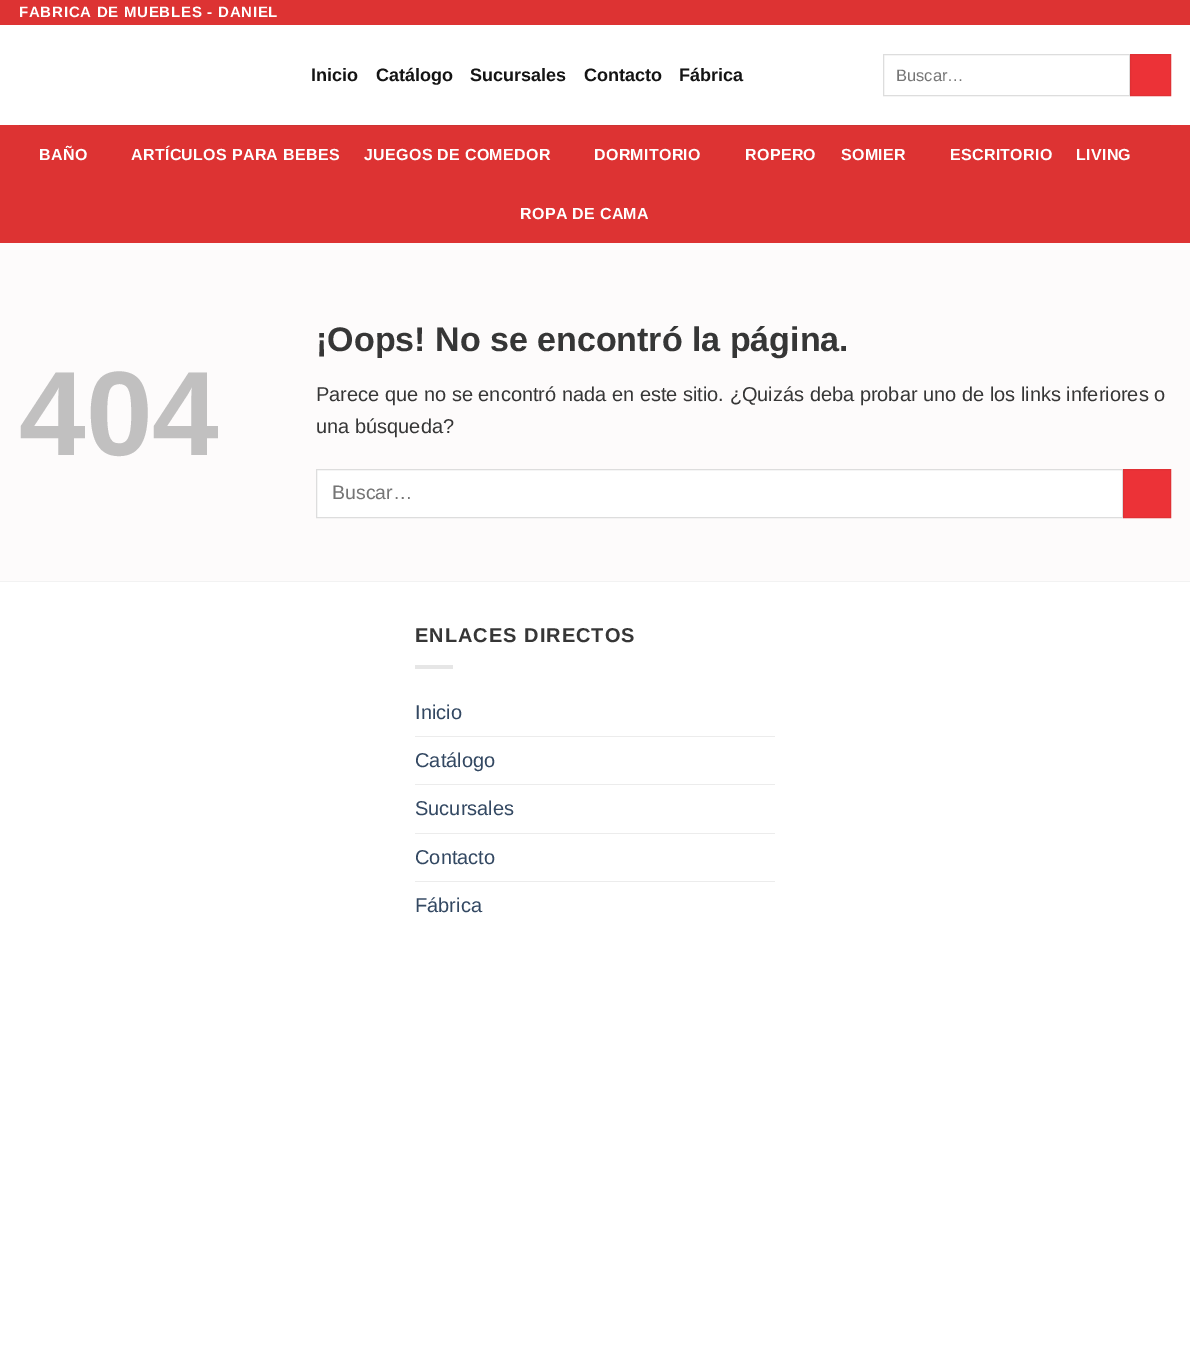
%!PS
<< /PageSize [1190 1357] >> setpagedevice
0 1357 translate 1 -1 scale
4 setmiterlimit
0.992 0.984 0.984 setrgbcolor
0 0 1190 1357 rectfill
0.867 0.2 0.2 setrgbcolor
0 0 1190 25 rectfill
/LiberationSans-Bold [15 0 0 -15 0 0] selectfont
1 setgray
19 17 moveto 0.75 0 (FABRICA DE MUEBLES - DANIEL) ashow
0 25 1190 100 rectfill
/LiberationSans-Bold [18 0 0 -18 0 0] selectfont
0.078 setgray
311 81 moveto (Inicio) show
376 81 moveto (Catálogo) show
470 81 moveto (Sucursales) show
584 81 moveto (Contacto) show
679 81 moveto (Fábrica) show
0.867 setgray
883.5 54.5 246 41 rectstroke
/LiberationSans-Regular [16.5 0 0 -16.5 0 0] selectfont
0.459 setgray
896 81 moveto (Buscar…) show
0.925 0.196 0.216 setrgbcolor
newpath 1130.5 54.5 moveto 1170.5 54.5 lineto 1170.5 95.5 lineto 1130.5 95.5 lineto closepath gsave fill grestore
0.878 0.188 0.204 setrgbcolor
stroke
0.867 0.2 0.2 setrgbcolor
0 125 1190 118 rectfill
0.8 0.2 0.2 setrgbcolor
19 125 1152 1 rectfill
/LiberationSans-Bold [16 0 0 -16 0 0] selectfont
1 setgray
39 160 moveto 0.3 0 (BAÑO) ashow
131 160 moveto 0.3 0 (ARTÍCULOS PARA BEBES) ashow
364 160 moveto 0.3 0 (JUEGOS DE COMEDOR) ashow
594 160 moveto 0.3 0 (DORMITORIO) ashow
745 160 moveto 0.3 0 (ROPERO) ashow
841 160 moveto 0.3 0 (SOMIER) ashow
950 160 moveto 0.3 0 (ESCRITORIO) ashow
1076 160 moveto 0.3 0 (LIVING) ashow
520 219 moveto 0.3 0 (ROPA DE CAMA) ashow
/LiberationSans-Bold [120 0 0 -120 0 0] selectfont
0.757 0.753 0.753 setrgbcolor
19 455 moveto (404) show
/LiberationSans-Bold [34 0 0 -34 0 0] selectfont
0.212 setgray
316 351 moveto (¡Oops! No se encontró la página.) show
/LiberationSans-Regular [20 0 0 -20 0 0] selectfont
316 401 moveto (Parece que no se encontró nada en este sitio. ¿Quizás deba probar uno de los links inferiores o) show
316 433 moveto (una búsqueda?) show
1 setgray
newpath 316.5 469.5 moveto 1122.5 469.5 lineto 1122.5 517.5 lineto 316.5 517.5 lineto closepath gsave fill grestore
0.867 setgray
stroke
/LiberationSans-Regular [19.5 0 0 -19.5 0 0] selectfont
0.459 setgray
332 499 moveto (Buscar…) show
0.925 0.196 0.216 setrgbcolor
newpath 1123.5 469.5 moveto 1170.5 469.5 lineto 1170.5 517.5 lineto 1123.5 517.5 lineto closepath gsave fill grestore
0.878 0.188 0.204 setrgbcolor
stroke
1 setgray
0 582 1190 775 rectfill
0.949 setgray
0 581 1190 1 rectfill
/LiberationSans-Bold [20 0 0 -20 0 0] selectfont
0.212 setgray
415 642 moveto 1 0 (ENLACES DIRECTOS) ashow
0.902 setgray
415 665 38 4 rectfill
/LiberationSans-Regular [20 0 0 -20 0 0] selectfont
0.2 0.282 0.384 setrgbcolor
415 719 moveto (Inicio) show
0.925 setgray
415 736 360 1 rectfill
0.2 0.282 0.384 setrgbcolor
415 767 moveto (Catálogo) show
0.925 setgray
415 784 360 1 rectfill
0.2 0.282 0.384 setrgbcolor
415 815 moveto (Sucursales) show
0.925 setgray
415 833 360 1 rectfill
0.2 0.282 0.384 setrgbcolor
415 864 moveto (Contacto) show
0.925 setgray
415 881 360 1 rectfill
0.2 0.282 0.384 setrgbcolor
415 912 moveto (Fábrica) show
showpage
